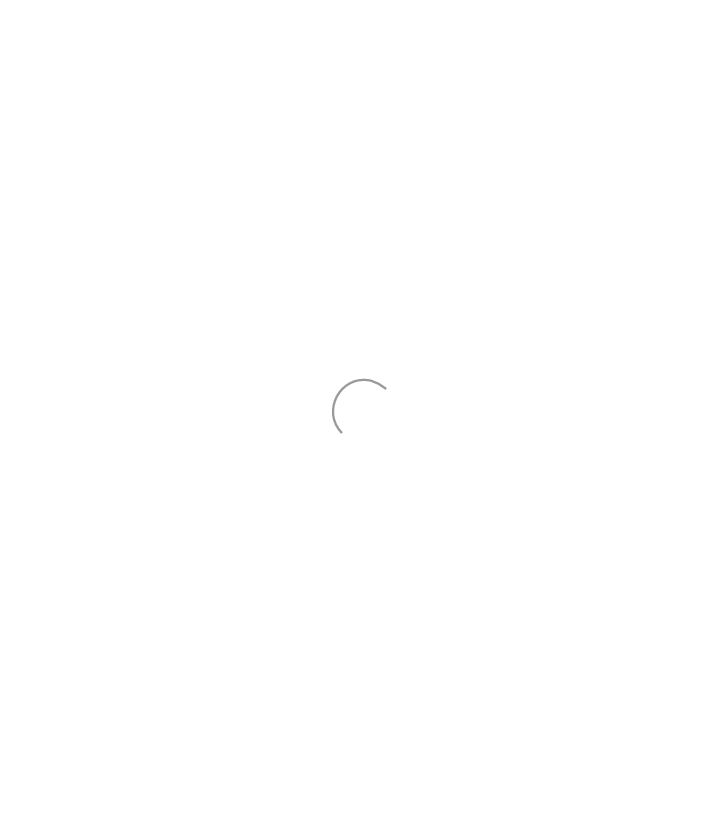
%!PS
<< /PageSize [724 837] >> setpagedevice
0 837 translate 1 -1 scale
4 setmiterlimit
1 setgray
0 0 724 837 rectfill
0.604 setgray
2 setlinewidth
newpath 342 433 moveto 320.5 411.5 340.5 374.5 370 380.5 curveto 376 382 381.5 385 386 389 curveto stroke
showpage
